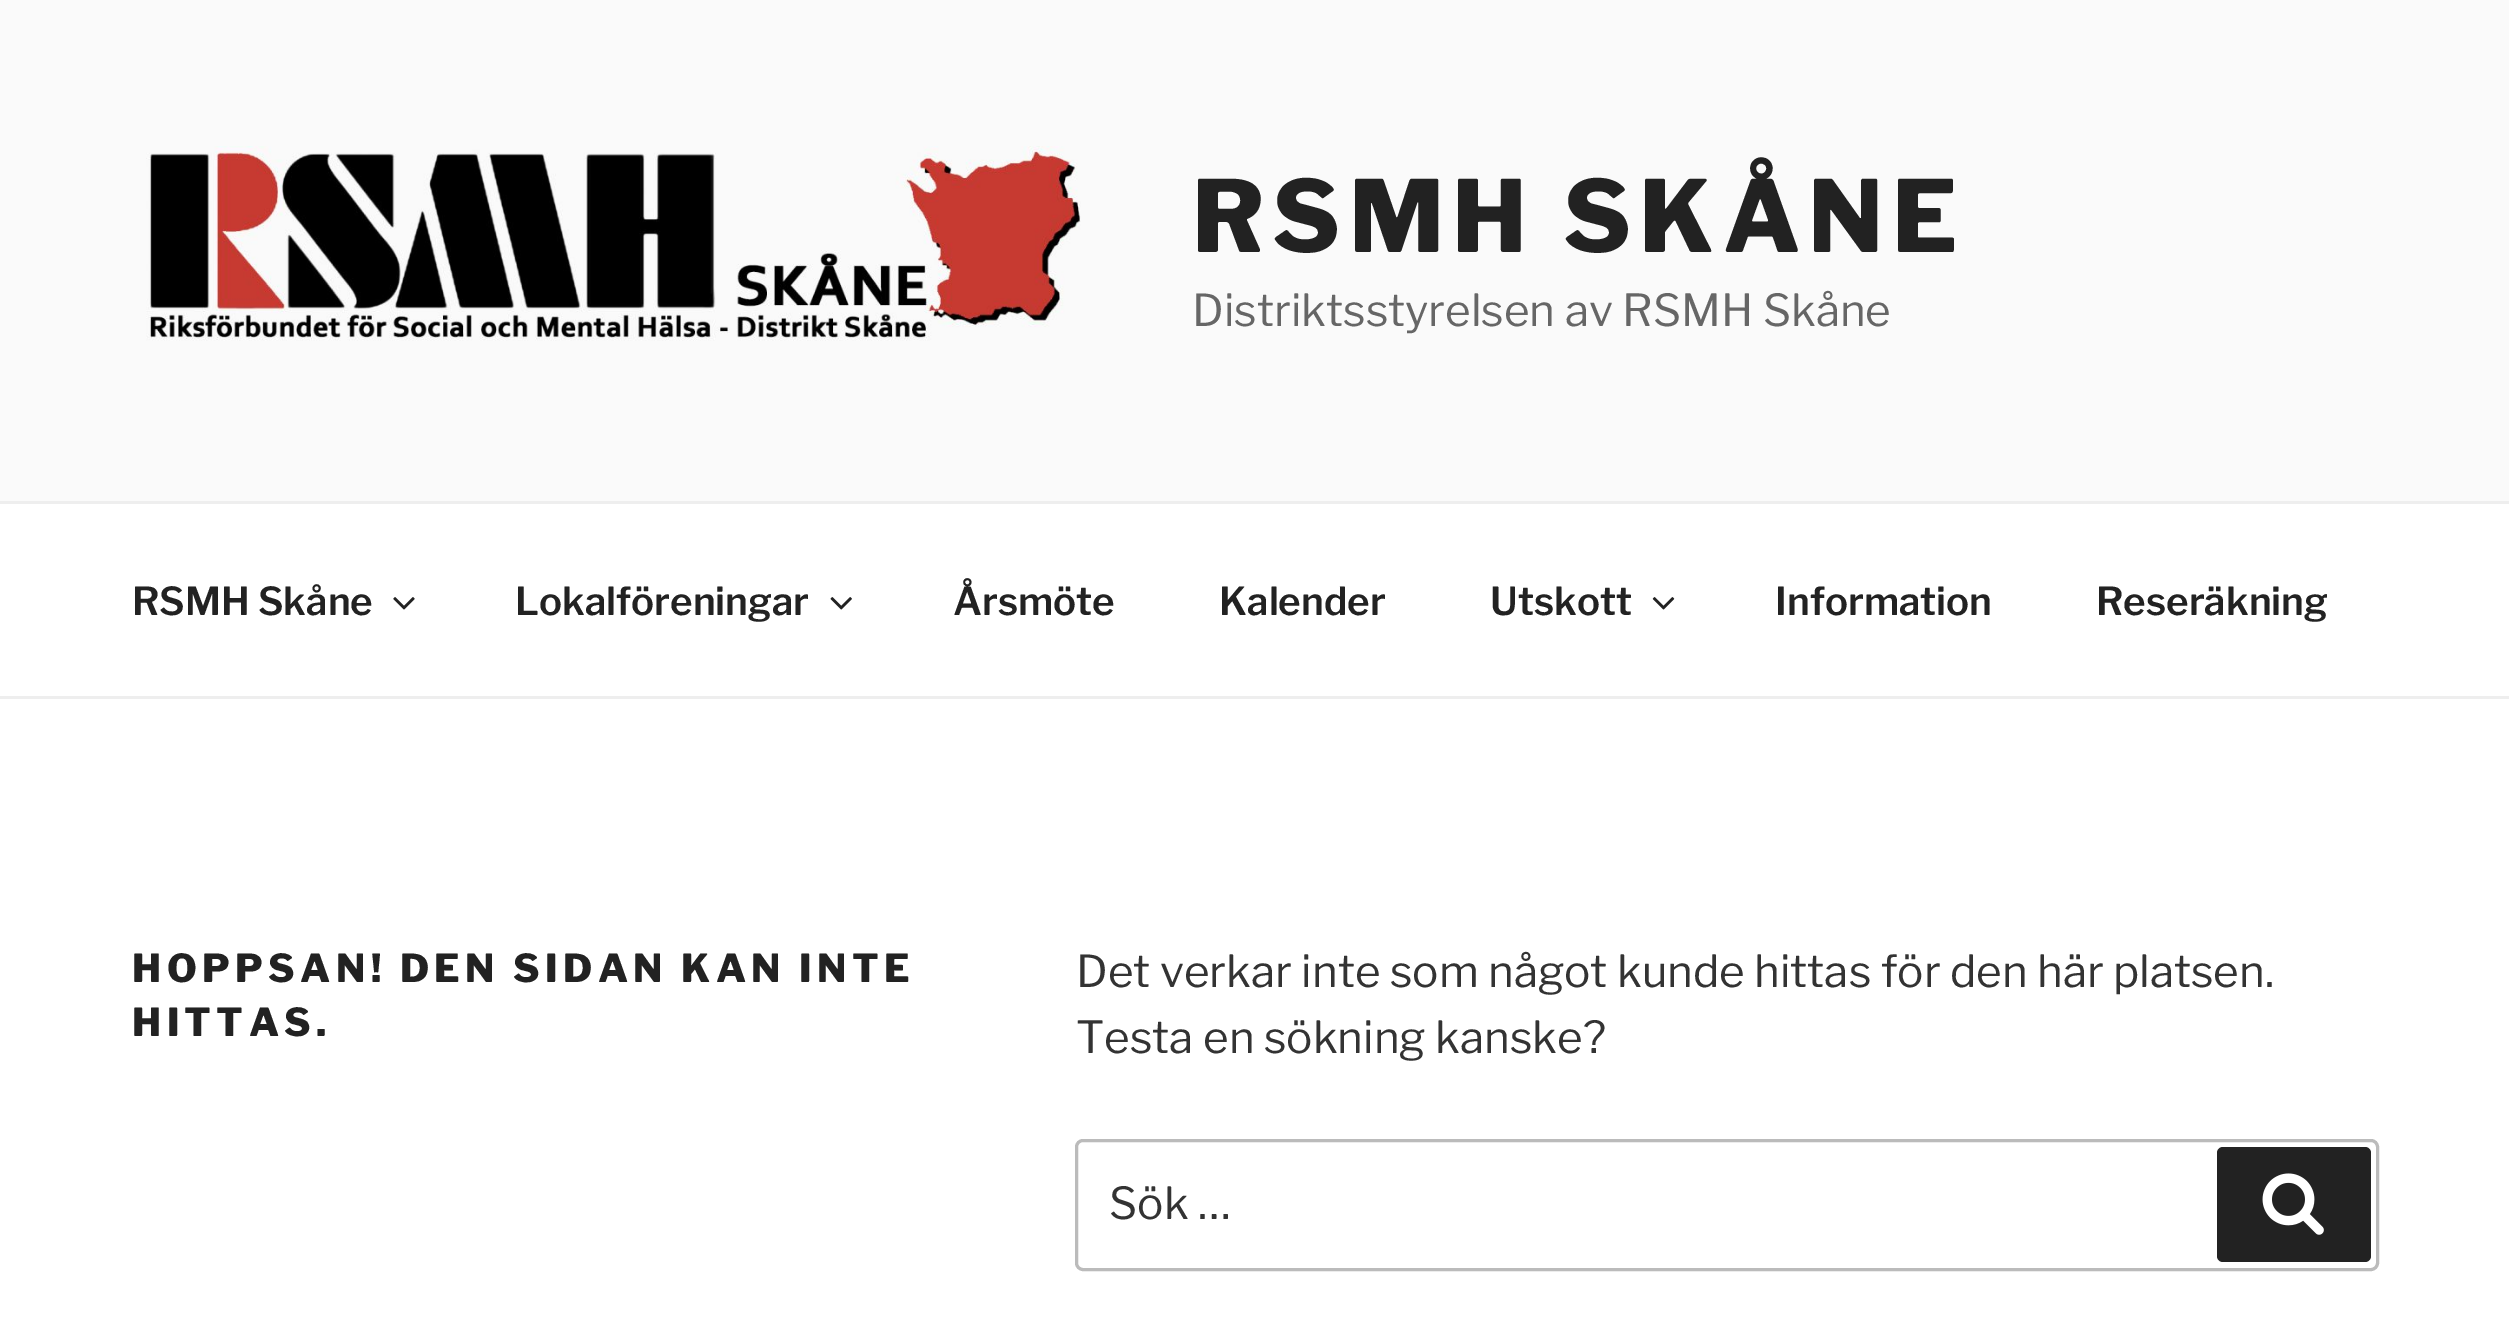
%!PS
<< /PageSize [2509 1337] >> setpagedevice
/roundrect { 5 dict begin { /r /h /w /y /x } { exch def } forall
  x r add y moveto x w add y 2 copy h add r arct x w add y h add x 1 index r arct
  x y h add x y r arct x y 2 copy exch w add exch r arct closepath end } def
/picture { 5 dict begin { /h /w /y /x /name } { exch def } forall
  gsave x y translate w h scale
  w h 8 [w 0 0 h 0 0] name (r) file false 3 colorimage grestore end } def
0 1337 translate 1 -1 scale
4 setmiterlimit
1 setgray
0 0 2509 1337 rectfill
0.98 setgray
0 0 2509 501 rectfill
(img1.rgb) 146 146 935 195 picture
/LibreFranklin-Thin [99 0 0 -99 0 0] selectfont
0.133 setgray
1192 252 moveto 8 0 (RSMH SKÅNE) ashow
/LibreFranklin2-Thin [44 0 0 -44 0 0] selectfont
0.4 setgray
1192 326 moveto (Distriktsstyrelsen av RSMH Skåne) show
0.933 setgray
0 501 2509 3 rectfill
0 696 2509 3 rectfill
/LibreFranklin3-Thin [38.5 0 0 -38.5 0 0] selectfont
0.133 setgray
132 615 moveto (RSMH Skåne) show
(img2.rgb) 393 597 22 13 picture
515 615 moveto (Lokalföreningar) show
(img3.rgb) 830 597 22 13 picture
953 615 moveto (Årsmöte) show
1219 615 moveto (Kalender) show
1490 615 moveto (Utskott) show
(img4.rgb) 1652 597 23 13 picture
1775 615 moveto (Information) show
2096 615 moveto (Reseräkning) show
/LibreFranklin-Thin [38.5 0 0 -38.5 0 0] selectfont
132 982 moveto 5.4 0 (HOPPSAN! DEN SIDAN KAN INTE) ashow
132 1036 moveto 5.4 0 (HITTAS.) ashow
/LibreFranklin2-Thin [44 0 0 -44 0 0] selectfont
0.2 setgray
1076 987 moveto (Det verkar inte som något kunde hittas för den här platsen.) show
1076 1053 moveto (Testa en sökning kanske?) show
0.733 setgray
3 setlinewidth
1076.5 1140.5 1301 129 6.5 roundrect stroke
0.2 setgray
1109 1219 moveto (Sök …) show
0.133 setgray
2217 1147 154 115 6 roundrect fill
(img5.rgb) 2262 1173 62 62 picture
showpage
